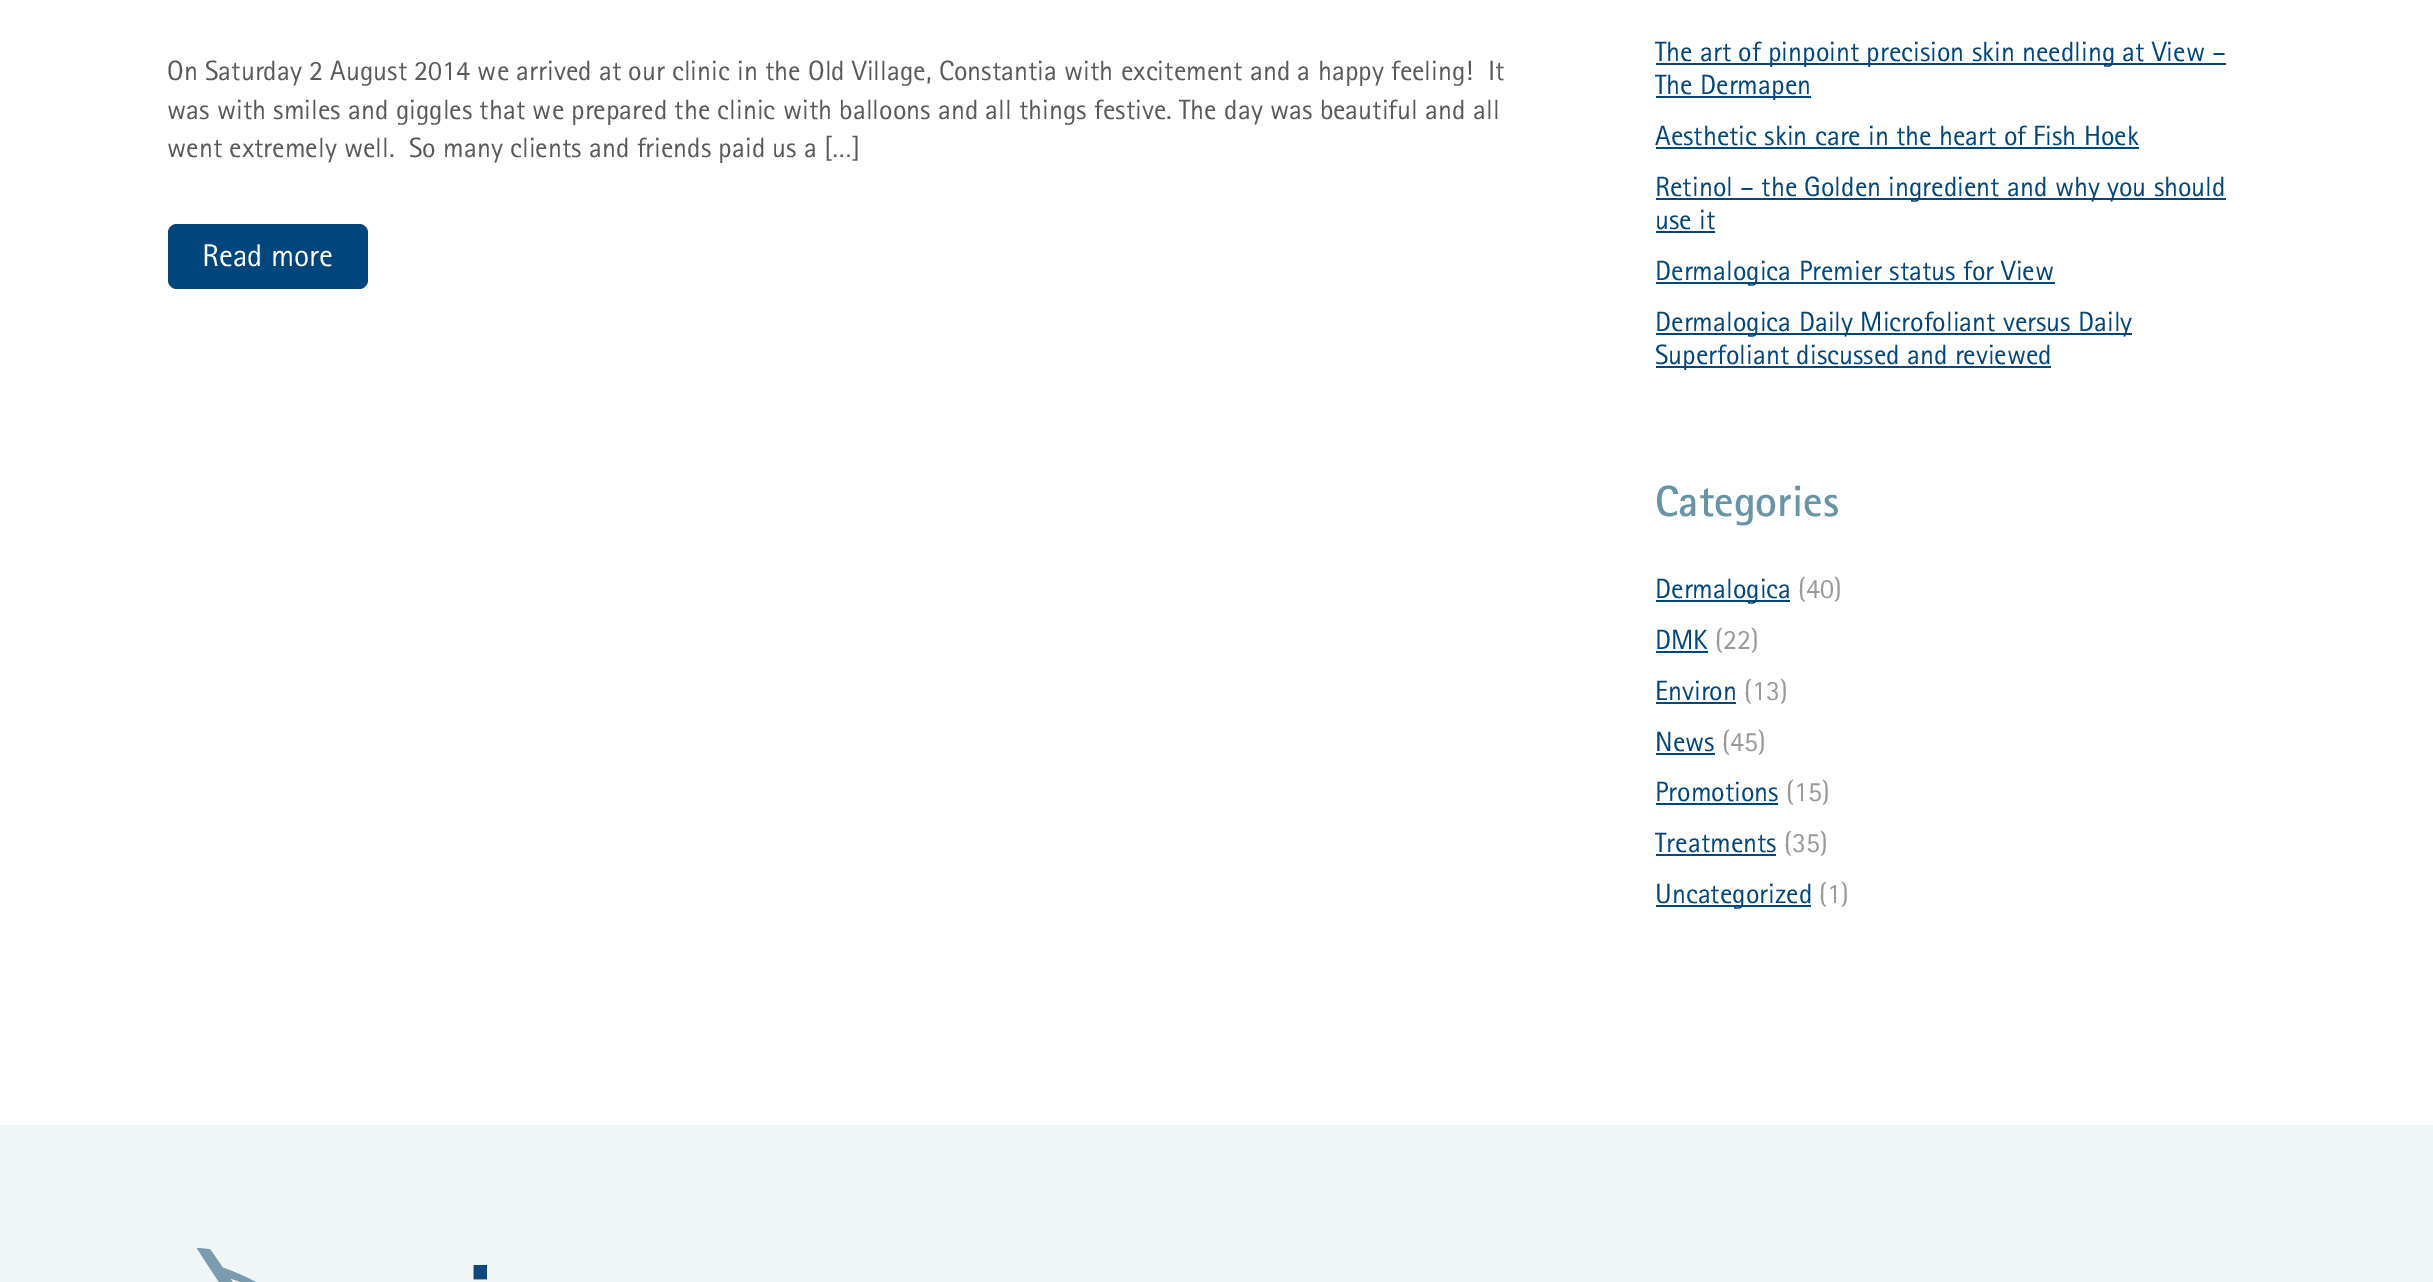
%!PS
<< /PageSize [2433 1282] >> setpagedevice
/roundrect { 5 dict begin { /r /h /w /y /x } { exch def } forall
  x r add y moveto x w add y 2 copy h add r arct x w add y h add x 1 index r arct
  x y h add x y r arct x y 2 copy exch w add exch r arct closepath end } def
/picture { 5 dict begin { /h /w /y /x /name } { exch def } forall
  gsave x y translate w h scale
  w h 8 [w 0 0 h 0 0] name (r) file false 3 colorimage grestore end } def
0 1282 translate 1 -1 scale
4 setmiterlimit
1 setgray
0 0 2433 1282 rectfill
/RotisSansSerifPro-Regular [28 0 0 -28 0 0] selectfont
0.349 0.349 0.357 setrgbcolor
167 80 moveto (On Saturday 2 August 2014 we arrived at our clinic in the Old Village, Constantia with excitement and a happy feeling!  It) show
167 119 moveto (was with smiles and giggles that we prepared the clinic with balloons and all things festive. The day was beautiful and all) show
167 157 moveto (went extremely well.  So many clients and friends paid us a […]) show
0 0.275 0.486 setrgbcolor
168 224 200 65 9 roundrect fill
/RotisSansSerifPro-Regular [31.5 0 0 -31.5 0 0] selectfont
1 setgray
202 266 moveto (Read more) show
0 0.275 0.486 setrgbcolor
1656 63 570 2 rectfill
/RotisSansSerifPro-Regular [28 0 0 -28 0 0] selectfont
1655 61 moveto (The art of pinpoint precision skin needling at View –) show
1656 96 155 2 rectfill
1655 94 moveto (The Dermapen) show
1655 145 moveto (Aesthetic skin care in the heart of Fish Hoek) show
1656 147 483 2 rectfill
1656 198 570 2 rectfill
1655 196 moveto (Retinol – the Golden ingredient and why you should) show
1655 229 moveto (use it) show
1656 231 59 2 rectfill
1656 282 399 2 rectfill
1655 280 moveto (Dermalogica Premier status for View) show
1656 333 476 2 rectfill
1655 331 moveto (Dermalogica Daily Microfoliant versus Daily) show
1656 366 395 2 rectfill
1655 364 moveto (Superfoliant discussed and reviewed) show
/RotisSansSerifPro-Bold [43.75 0 0 -43.75 0 0] selectfont
0.408 0.58 0.659 setrgbcolor
1655 516 moveto (Categories) show
0 0.275 0.486 setrgbcolor
1656 600 134 2 rectfill
/RotisSansSerifPro-Regular [28 0 0 -28 0 0] selectfont
1655 598 moveto (Dermalogica) show
0.6 setgray
1798 598 moveto (\(40\)) show
0 0.275 0.486 setrgbcolor
1655 649 moveto (DMK) show
1656 651 52 2 rectfill
0.6 setgray
1715 649 moveto (\(22\)) show
0 0.275 0.486 setrgbcolor
1655 700 moveto (Environ) show
1656 702 80 2 rectfill
0.6 setgray
1744 700 moveto (\(13\)) show
0 0.275 0.486 setrgbcolor
1655 751 moveto (News) show
1656 753 59 2 rectfill
0.6 setgray
1722 751 moveto (\(45\)) show
0 0.275 0.486 setrgbcolor
1655 801 moveto (Promotions) show
1656 803 122 2 rectfill
0.6 setgray
1786 801 moveto (\(15\)) show
0 0.275 0.486 setrgbcolor
1655 852 moveto (Treatments) show
1656 854 120 2 rectfill
0.6 setgray
1784 852 moveto (\(35\)) show
0 0.275 0.486 setrgbcolor
1656 905 155 2 rectfill
1655 903 moveto (Uncategorized) show
0.6 setgray
1819 903 moveto (\(1\)) show
0.941 0.961 0.969 setrgbcolor
0 1125 2433 157 rectfill
(img1.rgb) 196 1248 291 34 picture
showpage
